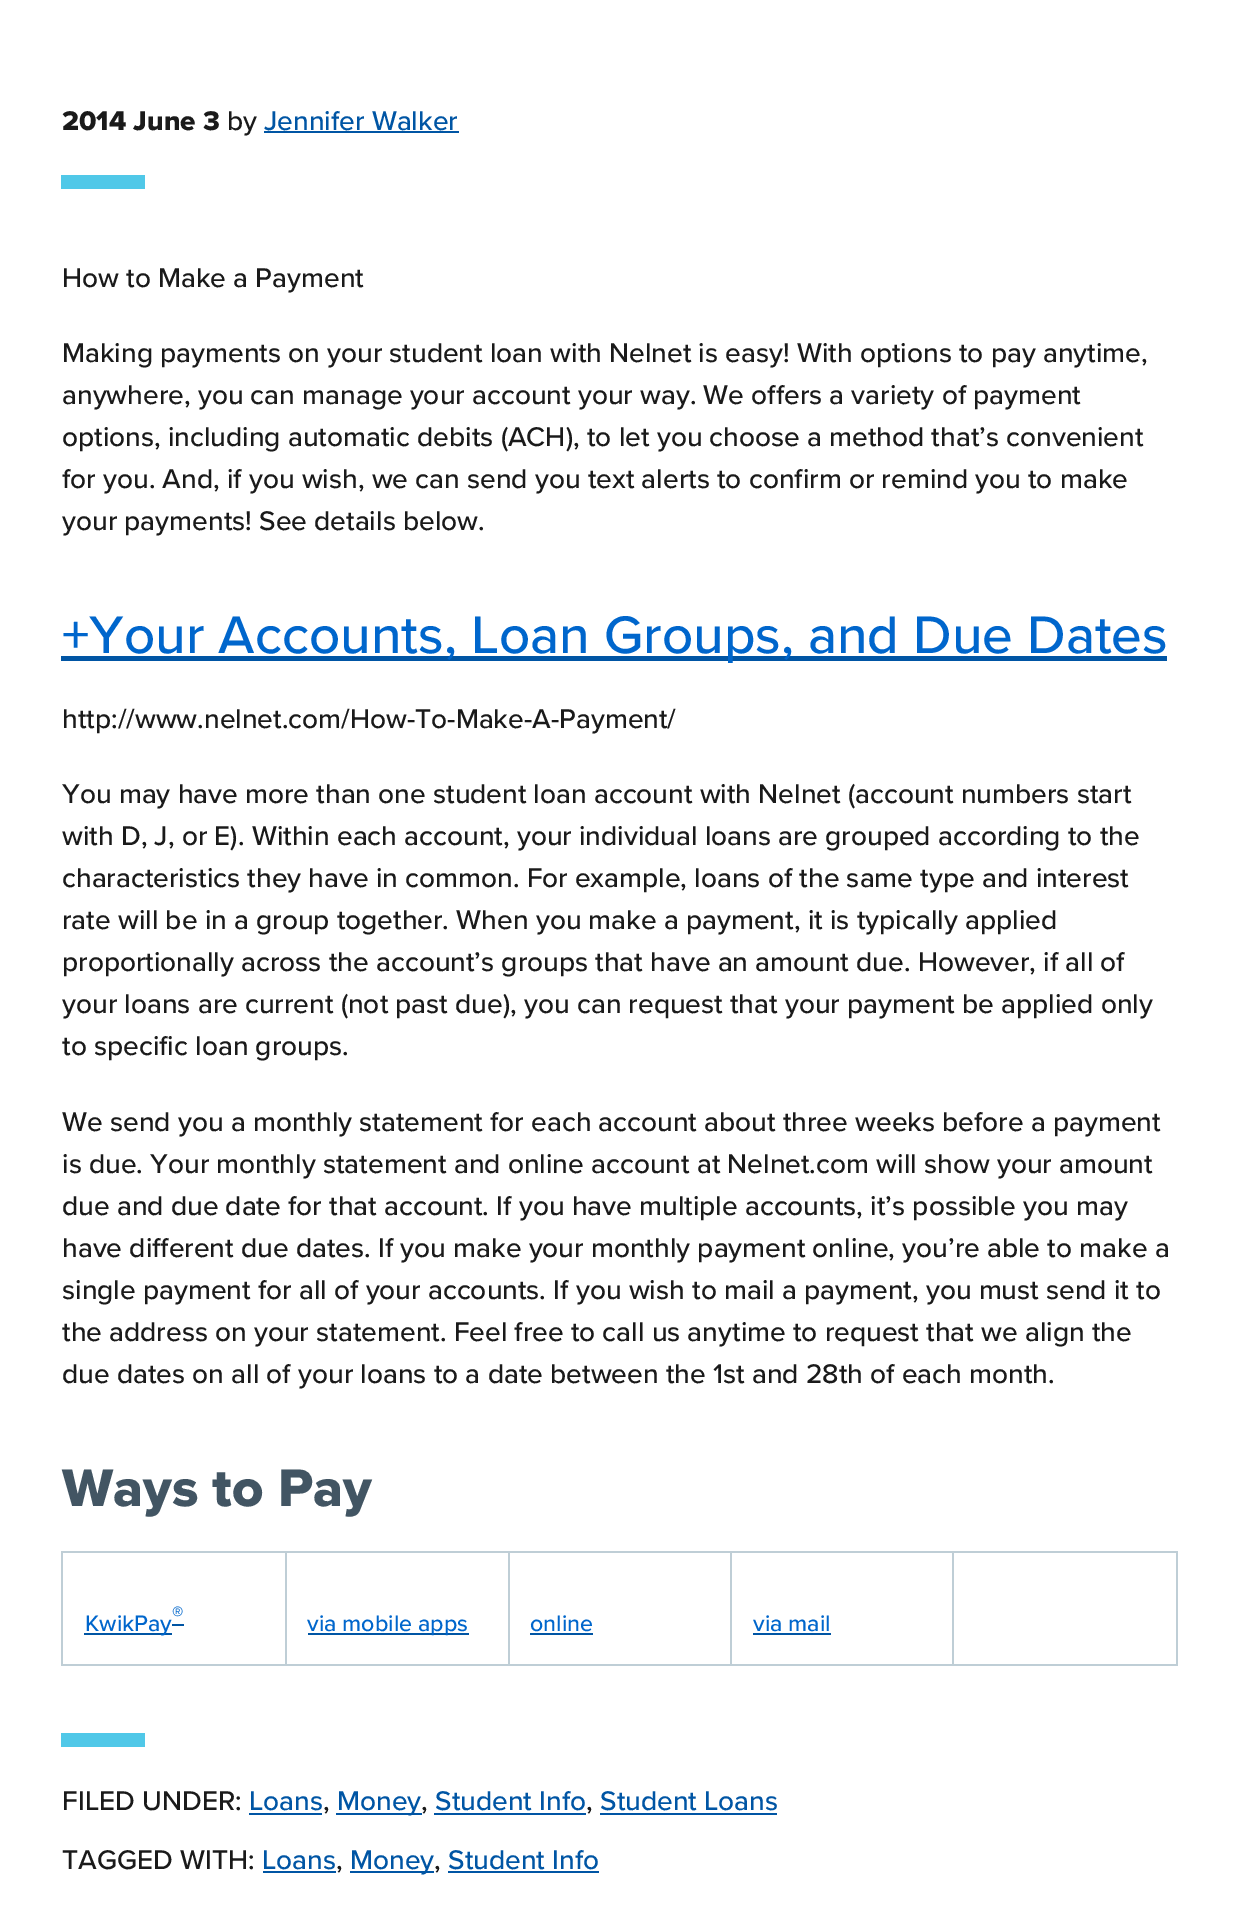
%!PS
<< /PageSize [1238 1908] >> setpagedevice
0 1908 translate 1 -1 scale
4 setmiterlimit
1 setgray
0 0 1238 1908 rectfill
/ProximaNova-ExtraBold [28 0 0 -28 0 0] selectfont
0.102 setgray
62 130 moveto (2014 June 3) show
/ProximaNova-Medium [28 0 0 -28 0 0] selectfont
227 130 moveto (by) show
0 0.333 0.643 setrgbcolor
264 130 moveto (Jennifer Walker) show
264 131 195 2 rectfill
0.314 0.784 0.91 setrgbcolor
61 175 84 14 rectfill
0.102 setgray
62 287 moveto (How to Make a Payment) show
62 362 moveto (Making payments on your student loan with Nelnet is easy! With options to pay anytime,) show
62 404 moveto (anywhere, you can manage your account your way. We offers a variety of payment) show
62 446 moveto (options, including automatic debits \(ACH\), to let you choose a method that’s convenient) show
62 488 moveto (for you. And, if you wish, we can send you text alerts to confirm or remind you to make) show
62 530 moveto (your payments! See details below.) show
0 0.333 0.643 setrgbcolor
61 656 1106 5 rectfill
/ProximaNova-Medium [54.7 0 0 -54.7 0 0] selectfont
0 0.4 0.8 setrgbcolor
62 653 moveto (+Your Accounts, Loan Groups, and Due Dates) show
/ProximaNova-Medium [28 0 0 -28 0 0] selectfont
0.102 setgray
62 728 moveto (http://www.nelnet.com/How-To-Make-A-Payment/) show
62 803 moveto (You may have more than one student loan account with Nelnet \(account numbers start) show
62 845 moveto (with D, J, or E\). Within each account, your individual loans are grouped according to the) show
62 887 moveto (characteristics they have in common. For example, loans of the same type and interest) show
62 929 moveto (rate will be in a group together. When you make a payment, it is typically applied) show
62 971 moveto (proportionally across the account’s groups that have an amount due. However, if all of) show
62 1013 moveto (your loans are current \(not past due\), you can request that your payment be applied only) show
62 1055 moveto (to specific loan groups.) show
62 1131 moveto (We send you a monthly statement for each account about three weeks before a payment) show
62 1173 moveto (is due. Your monthly statement and online account at Nelnet.com will show your amount) show
62 1215 moveto (due and due date for that account. If you have multiple accounts, it’s possible you may) show
62 1257 moveto (have different due dates. If you make your monthly payment online, you’re able to make a) show
62 1299 moveto (single payment for all of your accounts. If you wish to mail a payment, you must send it to) show
62 1341 moveto (the address on your statement. Feel free to call us anytime to request that we align the) show
62 1383 moveto (due dates on all of your loans to a date between the 1st and 28th of each month.) show
/ProximaNova-ExtraBold [54.7 0 0 -54.7 0 0] selectfont
0.259 0.333 0.388 setrgbcolor
62 1506 moveto (Ways to Pay) show
0.749 0.808 0.839 setrgbcolor
952 1551 226 2 rectfill
1176 1551 2 115 rectfill
952 1664 226 2 rectfill
952 1551 2 115 rectfill
730 1551 224 2 rectfill
730 1664 224 2 rectfill
730 1551 2 115 rectfill
508 1551 224 2 rectfill
508 1664 224 2 rectfill
508 1551 2 115 rectfill
285 1551 224 2 rectfill
285 1664 224 2 rectfill
285 1551 2 115 rectfill
61 1551 226 2 rectfill
61 1664 226 2 rectfill
61 1551 2 115 rectfill
/ProximaNova-Medium [23 0 0 -23 0 0] selectfont
0 0.4 0.8 setrgbcolor
172 1622 moveto (®) show
0 0.333 0.643 setrgbcolor
84 1633 88 2 rectfill
/ProximaNova-Medium [23.25 0 0 -23.25 0 0] selectfont
0 0.4 0.8 setrgbcolor
85 1631 moveto (KwikPay) show
0 0.333 0.643 setrgbcolor
172 1624 12 2 rectfill
308 1633 161 2 rectfill
0 0.4 0.8 setrgbcolor
307 1631 moveto (via mobile apps) show
530 1631 moveto (online) show
0 0.333 0.643 setrgbcolor
530 1633 63 2 rectfill
0 0.4 0.8 setrgbcolor
753 1631 moveto (via mail) show
0 0.333 0.643 setrgbcolor
753 1633 78 2 rectfill
0.314 0.784 0.91 setrgbcolor
61 1733 84 14 rectfill
/ProximaNova-Medium [28 0 0 -28 0 0] selectfont
0.102 setgray
62 1810 moveto (FILED UNDER:) show
0 0.333 0.643 setrgbcolor
249 1810 moveto (Loans) show
249 1813 73 2 rectfill
0.102 setgray
323 1810 moveto (,) show
0 0.333 0.643 setrgbcolor
336 1813 86 2 rectfill
337 1810 moveto (Money) show
0.102 setgray
421 1810 moveto (,) show
0 0.333 0.643 setrgbcolor
435 1810 moveto (Student Info) show
434 1813 152 2 rectfill
0.102 setgray
586 1810 moveto (,) show
0 0.333 0.643 setrgbcolor
600 1810 moveto (Student Loans) show
600 1813 177 2 rectfill
0.102 setgray
62 1869 moveto (TAGGED WITH:) show
0 0.333 0.643 setrgbcolor
262 1869 moveto (Loans) show
263 1871 73 2 rectfill
0.102 setgray
336 1869 moveto (,) show
0 0.333 0.643 setrgbcolor
350 1871 84 2 rectfill
350 1869 moveto (Money) show
0.102 setgray
434 1869 moveto (,) show
0 0.333 0.643 setrgbcolor
448 1869 moveto (Student Info) show
448 1871 151 2 rectfill
showpage
